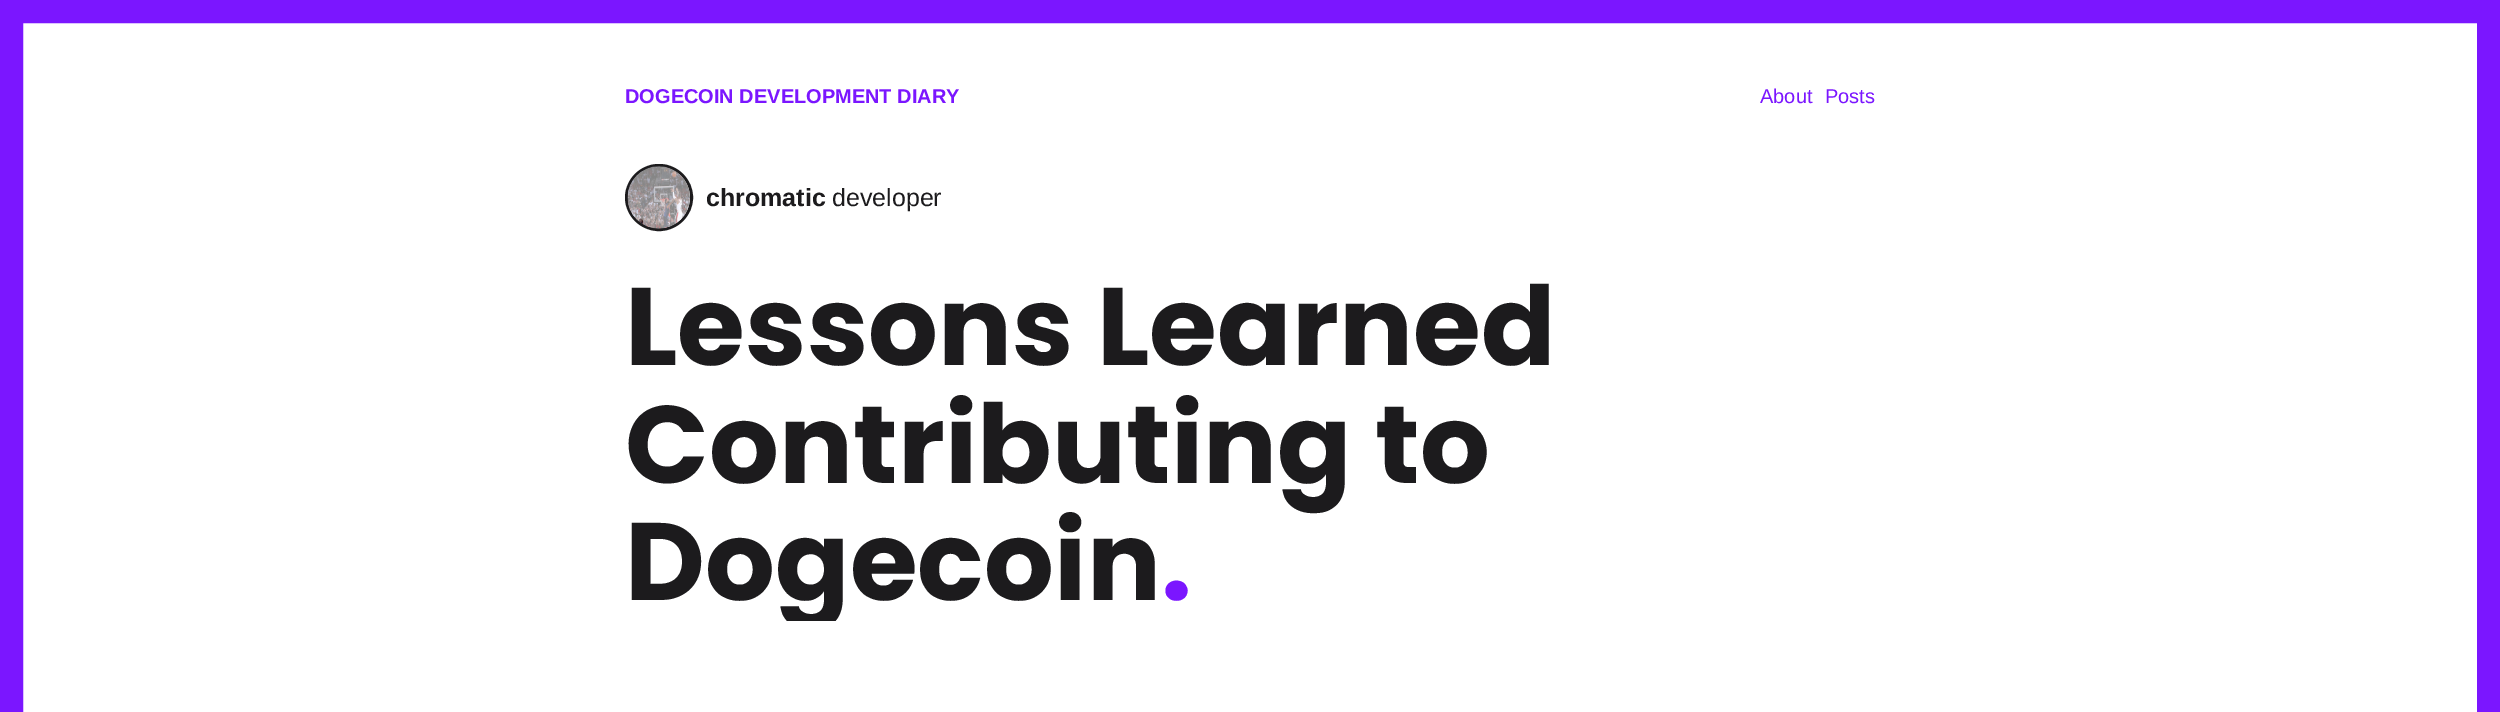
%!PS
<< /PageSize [2500 712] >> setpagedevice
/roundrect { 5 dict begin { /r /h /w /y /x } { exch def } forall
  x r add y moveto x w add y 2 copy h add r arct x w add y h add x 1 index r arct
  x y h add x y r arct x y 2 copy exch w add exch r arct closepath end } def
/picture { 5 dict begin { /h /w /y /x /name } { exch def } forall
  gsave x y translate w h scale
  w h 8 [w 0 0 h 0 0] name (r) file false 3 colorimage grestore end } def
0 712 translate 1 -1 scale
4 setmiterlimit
1 setgray
0 0 2500 712 rectfill
0.482 0.086 1 setrgbcolor
23 setlinewidth
11.5 11.5 2477 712 rectstroke
/LiberationSans-Bold [20 0 0 -20 0 0] selectfont
625 103 moveto (DOGECOIN DEVELOPMENT DIARY) show
/LiberationSans-Regular [20 0 0 -20 0 0] selectfont
1760 103 moveto (About) show
1825 103 moveto (Posts) show
0.11 0.106 0.114 setrgbcolor
3 setlinewidth
626.5 165.5 65 64 32 roundrect stroke
(img1.rgb) 627 166 63 63 picture
/LiberationSans-Bold [25 0 0 -25 0 0] selectfont
706 206 moveto (chromatic) show
/LiberationSans-Regular [25 0 0 -25 0 0] selectfont
832 206 moveto (developer) show
/Poppins-Bold [110 0 0 -110 0 0] selectfont
625 365 moveto (Lessons Learned) show
625 483 moveto (Contributing to) show
gsave
625 269 1000 352 rectclip
625 600 moveto (Dogecoin) show
grestore
0.482 0.086 1 setrgbcolor
1161 600 moveto (.) show
showpage
